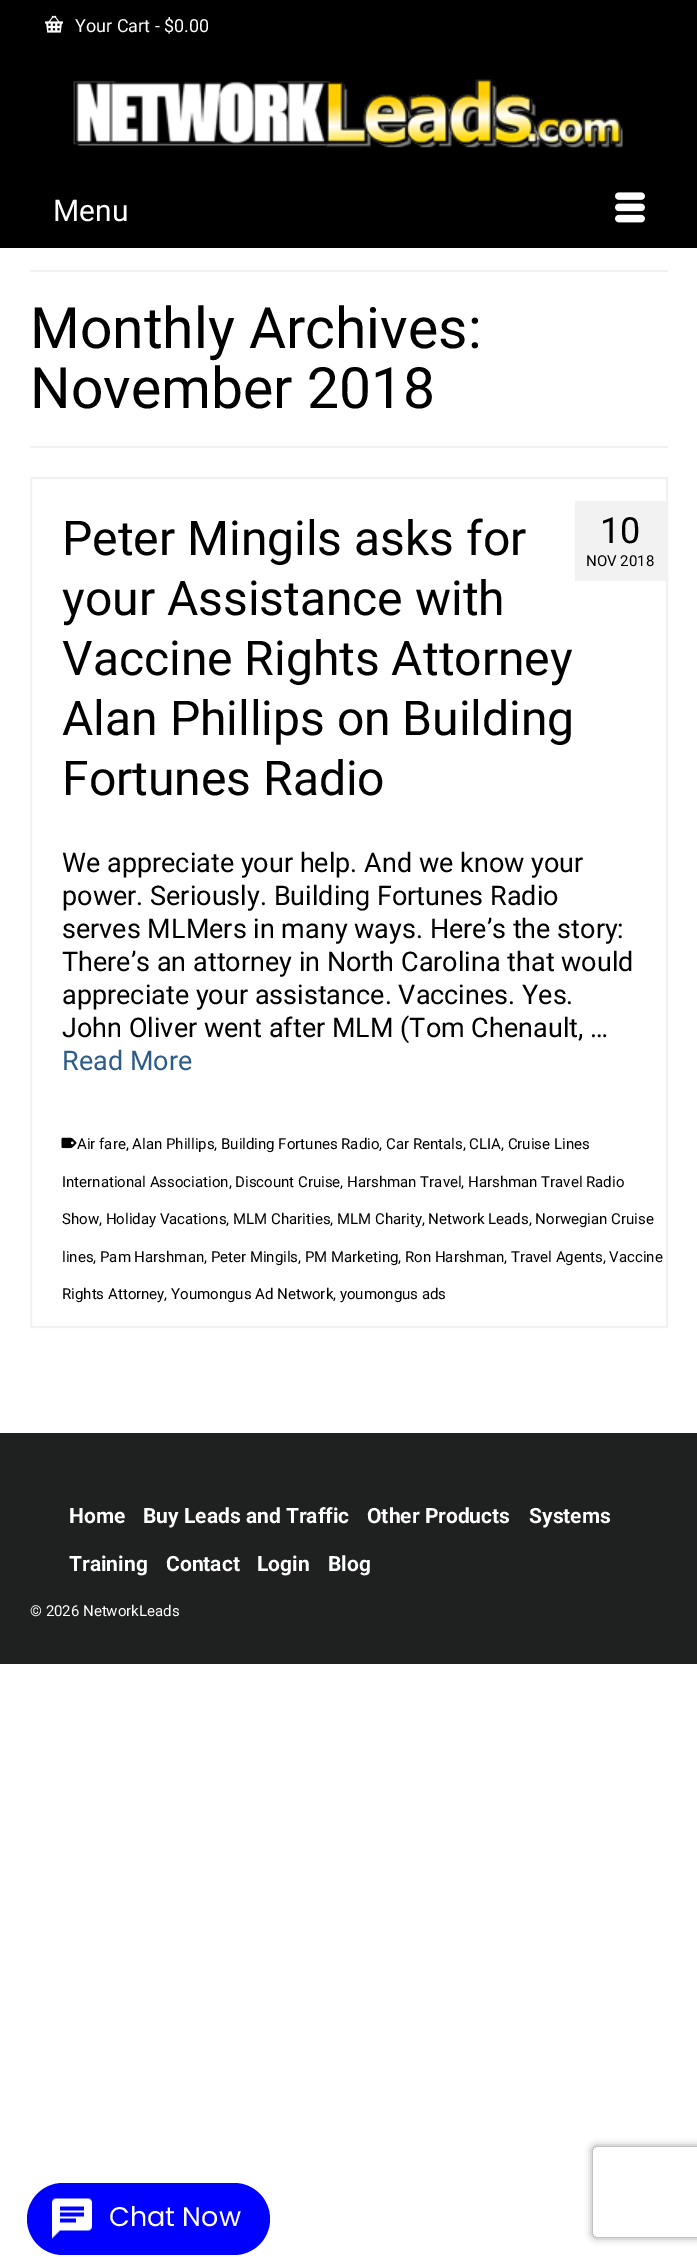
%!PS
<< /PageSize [697 2257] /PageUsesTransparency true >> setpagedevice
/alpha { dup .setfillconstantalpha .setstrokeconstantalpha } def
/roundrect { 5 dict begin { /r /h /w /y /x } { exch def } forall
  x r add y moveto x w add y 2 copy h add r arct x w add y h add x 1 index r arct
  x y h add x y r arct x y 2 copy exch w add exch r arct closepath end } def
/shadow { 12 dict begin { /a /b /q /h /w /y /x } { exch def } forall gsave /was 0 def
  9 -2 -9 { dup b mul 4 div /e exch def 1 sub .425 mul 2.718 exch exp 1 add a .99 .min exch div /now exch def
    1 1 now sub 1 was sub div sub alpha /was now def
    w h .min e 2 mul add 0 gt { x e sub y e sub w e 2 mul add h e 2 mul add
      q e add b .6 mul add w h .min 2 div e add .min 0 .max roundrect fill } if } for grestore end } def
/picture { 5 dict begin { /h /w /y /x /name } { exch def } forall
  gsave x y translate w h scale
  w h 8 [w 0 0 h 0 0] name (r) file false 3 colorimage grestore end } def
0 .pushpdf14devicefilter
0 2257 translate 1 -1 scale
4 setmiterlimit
1 setgray
0 0 697 2257 rectfill
0 setgray
0 0 697 248 rectfill
(img1.rgb) 45 15 18 18 picture
/Roboto-Regular [18 0 0 -18 0 0] selectfont
1 setgray
75 32 moveto (Your Cart - $0.00) show
(img2.rgb) 73 79 550 69 picture
/Roboto-Regular [30 0 0 -30 0 0] selectfont
53 221 moveto (Menu) show
(img3.rgb) 615 192 30 31 picture
0.949 setgray
30 270 638 2 rectfill
30 446 638 2 rectfill
/Roboto-Regular [57 0 0 -57 0 0] selectfont
0 setgray
30 348 moveto (Monthly Archives:) show
30 408 moveto (November 2018) show
0.949 setgray
2 setlinewidth
31 478 636 849 rectstroke
/Roboto-Regular [48 0 0 -48 0 0] selectfont
0 setgray
62 555 moveto (Peter Mingils asks for) show
62 615 moveto (your Assistance with) show
62 675 moveto (Vaccine Rights Attorney) show
62 735 moveto (Alan Phillips on Building) show
62 795 moveto (Fortunes Radio) show
0.949 setgray
575 501 91 80 rectfill
/Roboto-Regular [36 0 0 -36 0 0] selectfont
0 setgray
600 543 moveto (10) show
/Roboto-Regular [15 0 0 -15 0 0] selectfont
586 566 moveto (NOV 2018) show
/Roboto-Regular [27 0 0 -27 0 0] selectfont
62 872 moveto (We appreciate your help. And we know your) show
62 905 moveto (power. Seriously. Building Fortunes Radio) show
62 938 moveto (serves MLMers in many ways. Here’s the story:) show
62 971 moveto (There’s an attorney in North Carolina that would) show
62 1004 moveto (appreciate your assistance. Vaccines. Yes.) show
62 1037 moveto (John Oliver went after MLM \(Tom Chenault, …) show
0.176 0.361 0.533 setrgbcolor
62 1070 moveto (Read More) show
(img4.rgb) 61 1137 16 12 picture
/Roboto-Regular [15 0 0 -15 0 0] selectfont
0 setgray
77 1149 moveto (Air fare, Alan Phillips, Building Fortunes Radio, Car Rentals, CLIA, Cruise Lines) show
62 1187 moveto (International Association, Discount Cruise, Harshman Travel, Harshman Travel Radio) show
62 1224 moveto (Show, Holiday Vacations, MLM Charities, MLM Charity, Network Leads, Norwegian Cruise) show
62 1262 moveto (lines, Pam Harshman, Peter Mingils, PM Marketing, Ron Harshman, Travel Agents, Vaccine) show
62 1299 moveto (Rights Attorney, Youmongus Ad Network, youmongus ads) show
0.122 0.125 0.125 setrgbcolor
0 1433 697 231 rectfill
/Roboto-Bold [21 0 0 -21 0 0] selectfont
1 setgray
69 1523 moveto (Home) show
143 1523 moveto (Buy Leads and Traffic) show
367 1523 moveto (Other Products) show
529 1523 moveto (Systems) show
69 1571 moveto (Training) show
166 1571 moveto (Contact) show
257 1571 moveto (Login) show
328 1571 moveto (Blog) show
/Roboto-Regular [15 0 0 -15 0 0] selectfont
30 1616 moveto (© 2026 NetworkLeads) show
0 0 1 setrgbcolor
27 2183 243 72 36 roundrect fill
(img5.rgb) 52 2198 40 41 picture
/Poppins-Regular [27 0 0 -27 0 0] selectfont
1 setgray
109 2226 moveto (Chat Now) show
gsave
newpath 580 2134 moveto 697 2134 lineto 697 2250 lineto 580 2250 lineto closepath 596 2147 moveto 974 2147 lineto 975.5 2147 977 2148.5 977 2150 curveto 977 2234 lineto 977 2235.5 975.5 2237 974 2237 curveto 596 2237 lineto 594.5 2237 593 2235.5 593 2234 curveto 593 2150 lineto 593 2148.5 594.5 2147 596 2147 curveto closepath eoclip newpath
0.502 setgray
593 2147 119 90 3 4 1 shadow
grestore
.poppdf14devicefilter showpage
